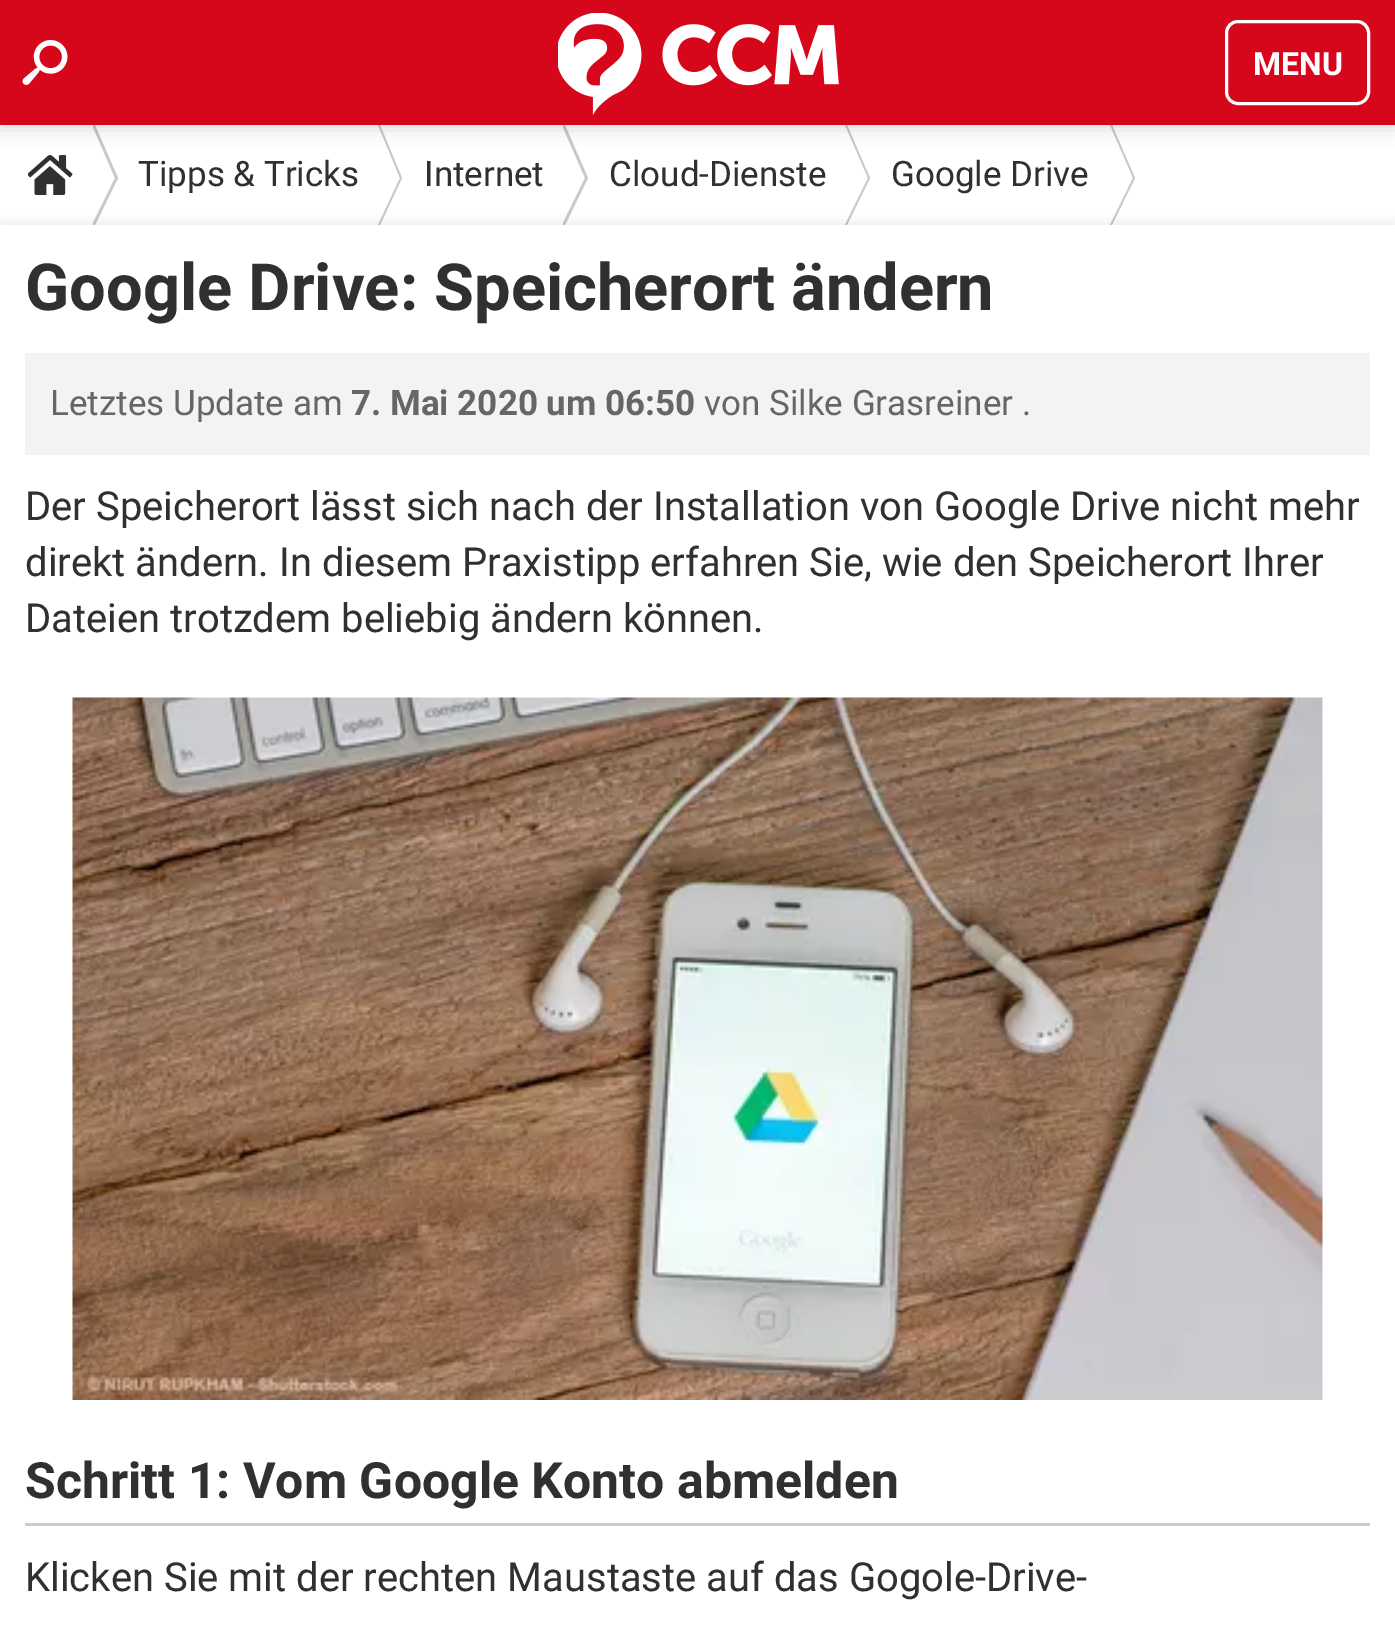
%!PS
<< /PageSize [1395 1628] /PageUsesTransparency true >> setpagedevice
/alpha { dup .setfillconstantalpha .setstrokeconstantalpha } def
/roundrect { 5 dict begin { /r /h /w /y /x } { exch def } forall
  x r add y moveto x w add y 2 copy h add r arct x w add y h add x 1 index r arct
  x y h add x y r arct x y 2 copy exch w add exch r arct closepath end } def
/shadow { 12 dict begin { /a /b /q /h /w /y /x } { exch def } forall gsave /was 0 def
  9 -2 -9 { dup b mul 4 div /e exch def 1 sub .425 mul 2.718 exch exp 1 add a .99 .min exch div /now exch def
    1 1 now sub 1 was sub div sub alpha /was now def
    w h .min e 2 mul add 0 gt { x e sub y e sub w e 2 mul add h e 2 mul add
      q e add b .6 mul add w h .min 2 div e add .min 0 .max roundrect fill } if } for grestore end } def
/picture { 5 dict begin { /h /w /y /x /name } { exch def } forall
  gsave x y translate w h scale
  w h 8 [w 0 0 h 0 0] name (r) file false 3 colorimage grestore end } def
0 .pushpdf14devicefilter
0 1628 translate 1 -1 scale
4 setmiterlimit
1 setgray
0 0 1395 1628 rectfill
(img3.rgb) 28 155 45 40 picture
gsave
93 125 25 100 rectclip
0.788 setgray
newpath 92 125 moveto 95 125 lineto 118 178 lineto 95 225 lineto 92 225 lineto 115 178 lineto closepath eofill
grestore
0.788 setgray
newpath 378 125 moveto 380 125 lineto 402 178 lineto 380 225 lineto 378 225 lineto 400 178 lineto closepath eofill
gsave
563 125 25 100 rectclip
newpath 562 125 moveto 565 125 lineto 588 178 lineto 565 225 lineto 562 225 lineto 585 178 lineto closepath eofill
grestore
newpath 845 125 moveto 847 125 lineto 870 178 lineto 847 225 lineto 845 225 lineto 868 178 lineto closepath eofill
newpath 1110 125 moveto 1112 125 lineto 1135 178 lineto 1112 225 lineto 1110 225 lineto 1133 178 lineto closepath eofill
0 setgray
0 0 1395 125 0 10 0.2 shadow
0.839 0.027 0.106 setrgbcolor
0 0 1395 125 rectfill
(img1.rgb) 22 40 46 45 picture
(img2.rgb) 558 13 281 102 picture
1 setgray
3 setlinewidth
1226.5 21.5 142 82 11.5 roundrect stroke
/Roboto-Bold [32 0 0 -32 0 0] selectfont
1253 75 moveto (MENU) show
/Roboto-Regular [35 0 0 -35 0 0] selectfont
0.188 setgray
138 186 moveto (Tipps & Tricks) show
424 186 moveto (Internet) show
609 186 moveto (Cloud-Dienste) show
891 186 moveto (Google Drive) show
0 setgray
0 225 1395 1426 0 7.5 0.1 shadow
1 setgray
0 225 1395 1403 rectfill
/Roboto-Bold [65 0 0 -65 0 0] selectfont
0.188 setgray
25 310 moveto (Google Drive: Speicherort ändern) show
0.953 setgray
25 353 1345 102 rectfill
/Roboto-Regular [35 0 0 -35 0 0] selectfont
0.4 setgray
50 415 moveto (Letztes Update am) show
/Roboto-Bold [35 0 0 -35 0 0] selectfont
351 415 moveto (7. Mai 2020 um 06:50) show
/Roboto-Regular [35 0 0 -35 0 0] selectfont
704 415 moveto (von Silke Grasreiner .) show
/Roboto-Regular [40 0 0 -40 0 0] selectfont
0.188 setgray
25 520 moveto (Der Speicherort lässt sich nach der Installation von Google Drive nicht mehr) show
25 576 moveto (direkt ändern. In diesem Praxistipp erfahren Sie, wie den Speicherort Ihrer) show
25 632 moveto (Dateien trotzdem beliebig ändern können.) show
(img4.rgb) 72 697 1251 703 picture
0.8 setgray
25 1523 1345 3 rectfill
/Roboto-Bold [50 0 0 -50 0 0] selectfont
0.188 setgray
25 1498 moveto (Schritt 1: Vom Google Konto abmelden) show
/Roboto-Regular [40 0 0 -40 0 0] selectfont
25 1591 moveto (Klicken Sie mit der rechten Maustaste auf das Gogole-Drive-) show
.poppdf14devicefilter showpage
